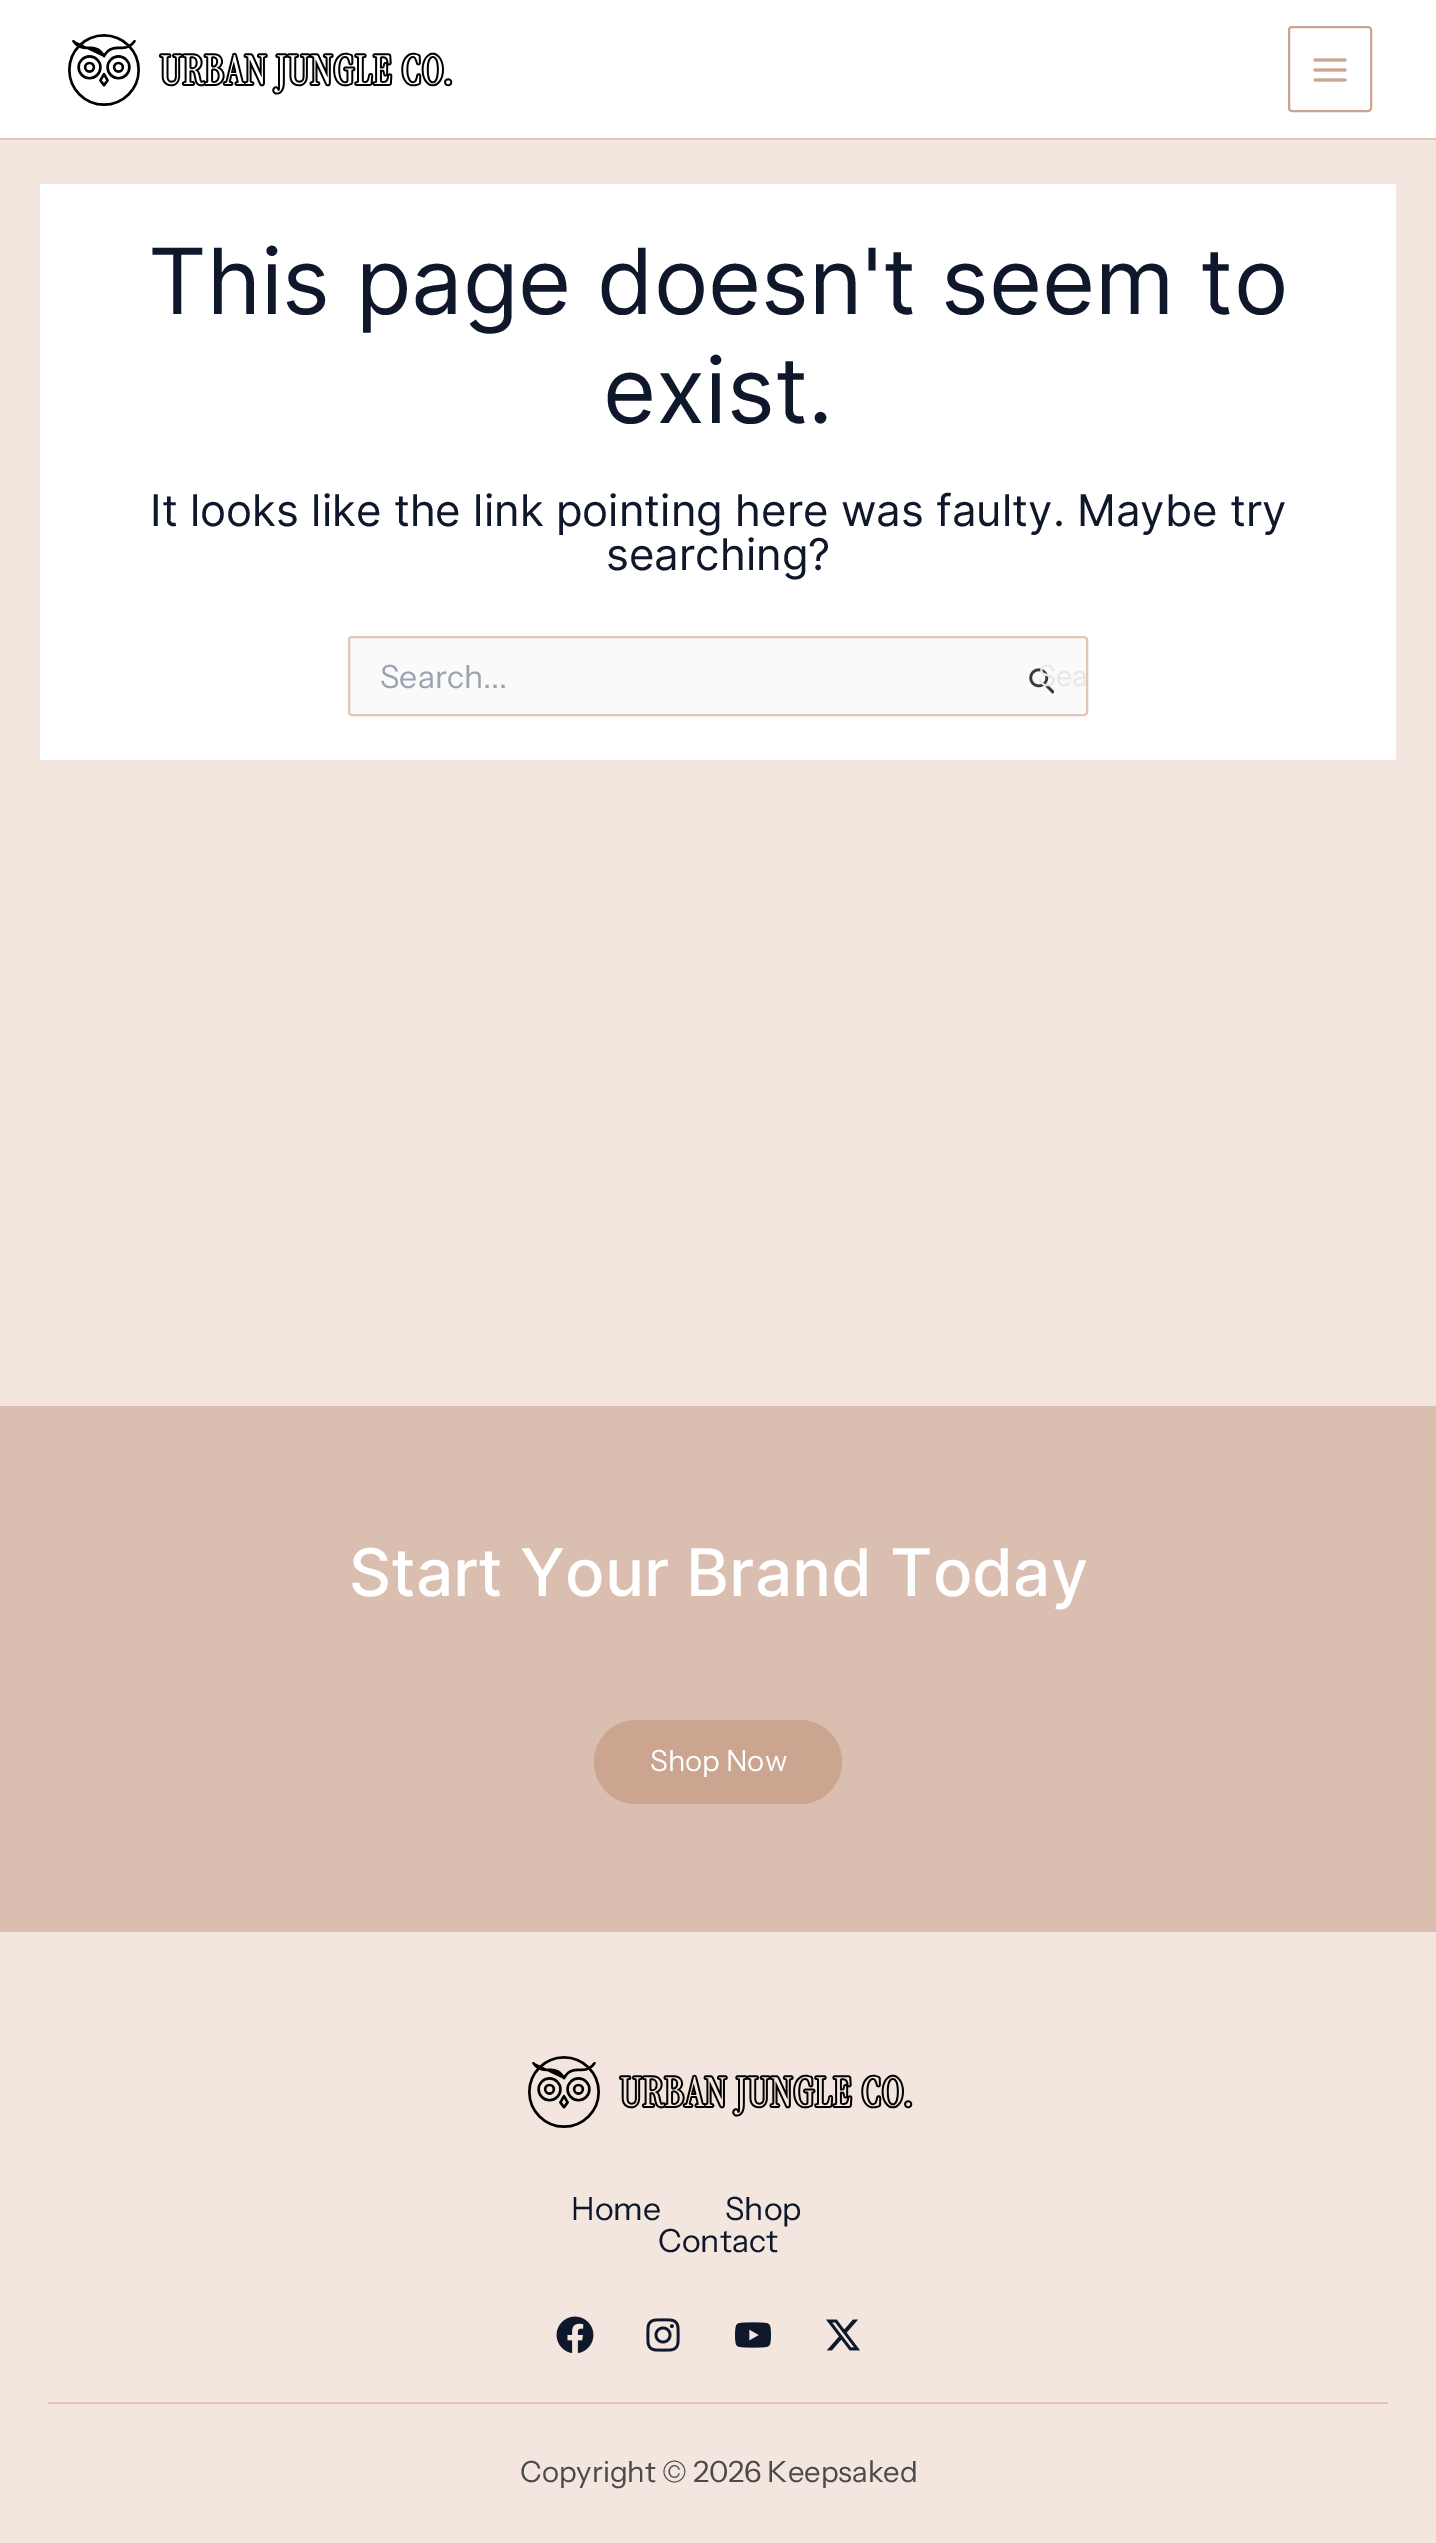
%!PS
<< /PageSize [1436 2543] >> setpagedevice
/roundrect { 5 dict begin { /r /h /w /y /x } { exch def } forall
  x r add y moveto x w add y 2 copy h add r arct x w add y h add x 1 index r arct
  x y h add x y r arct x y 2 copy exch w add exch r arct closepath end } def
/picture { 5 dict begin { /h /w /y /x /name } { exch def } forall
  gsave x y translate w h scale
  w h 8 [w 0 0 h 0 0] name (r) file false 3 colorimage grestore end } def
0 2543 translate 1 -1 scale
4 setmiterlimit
0.949 0.902 0.875 setrgbcolor
0 0 1436 2543 rectfill
1 setgray
0 0 1436 138 rectfill
0.894 0.769 0.702 setrgbcolor
0 138 1436 2 rectfill
(img1.rgb) 68 34 385 72 picture
0.796 0.647 0.565 setrgbcolor
2 setlinewidth
1289 27 82 84 3 roundrect stroke
(img2.rgb) 1313 58 34 24 picture
1 setgray
40 184 1356 576 rectfill
/Inter-Regular [91.25 0 0 -91.25 0 0] selectfont
0.059 0.09 0.165 setrgbcolor
148 314 moveto (This page doesn't seem to) show
603 423 moveto (exist.) show
/Inter-Regular [43.75 0 0 -43.75 0 0] selectfont
150 526 moveto (It looks like the link pointing here was faulty. Maybe try) show
606 570 moveto (searching?) show
0.98 setgray
349 637 738 78 3 roundrect gsave fill grestore
0.894 0.769 0.702 setrgbcolor
stroke
/InstrumentSans-Regular [32 0 0 -32 0 0] selectfont
0.612 0.639 0.686 setrgbcolor
380 688 moveto (Search...) show
(img3.rgb) 1029 668 25 26 picture
/InstrumentSans-Regular [29.25 0 0 -29.25 0 0] selectfont
0.906 setgray
1038 686 moveto (Sea) show
0.855 0.749 0.69 setrgbcolor
0 1406 1436 526 rectfill
/Inter-Medium [65.7 0 0 -65.7 0 0] selectfont
1 setgray
349 1596 moveto (Start Your Brand Today) show
0.796 0.647 0.565 setrgbcolor
594 1720 248 84 42 roundrect fill
/InstrumentSans-Regular [29.25 0 0 -29.25 0 0] selectfont
1 setgray
650 1771 moveto (Shop Now) show
0.894 0.769 0.702 setrgbcolor
48 2402 1340 2 rectfill
(img4.rgb) 528 2056 385 72 picture
/InstrumentSans-Regular [32 0 0 -32 0 0] selectfont
0.059 0.09 0.165 setrgbcolor
571 2220 moveto (Home) show
725 2220 moveto (Shop) show
658 2252 moveto (Contact) show
(img5.rgb) 556 2316 38 38 picture
(img6.rgb) 646 2318 34 34 picture
(img7.rgb) 735 2322 36 26 picture
(img8.rgb) 826 2319 34 32 picture
/InstrumentSans-Regular [29.25 0 0 -29.25 0 0] selectfont
0.29 setgray
520 2482 moveto (Copyright © 2026 Keepsaked) show
showpage
